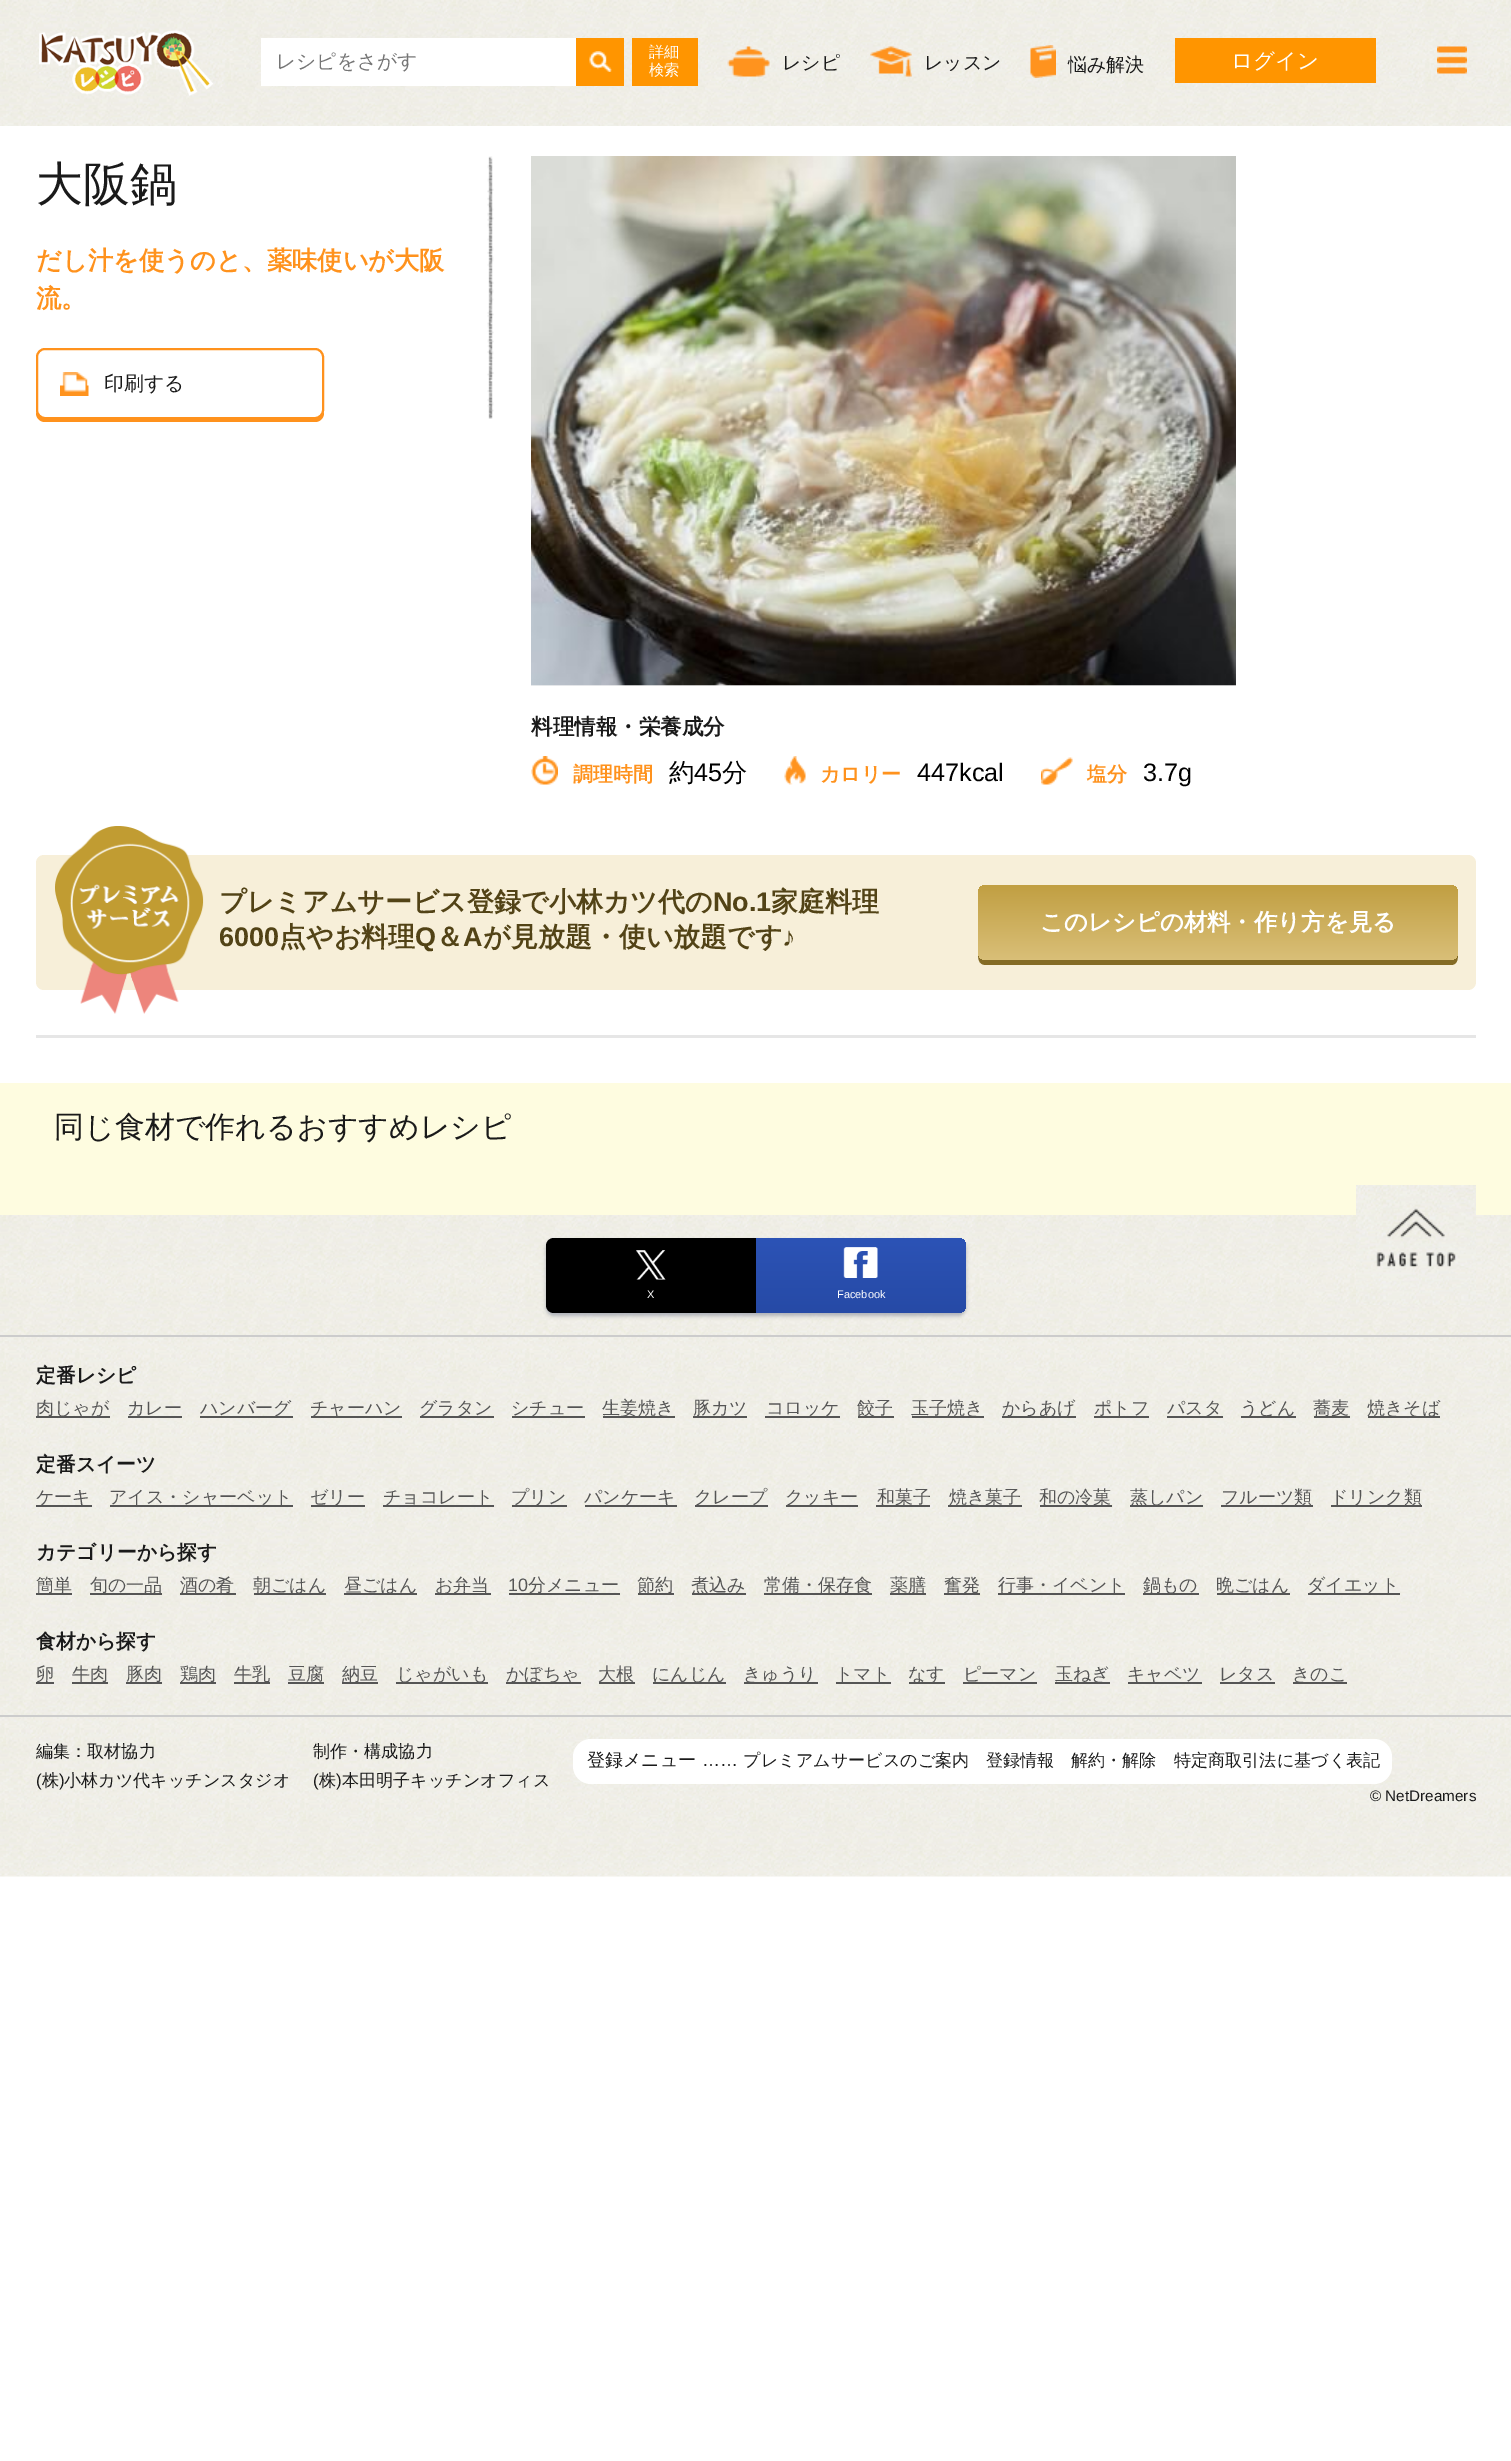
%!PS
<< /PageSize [1511 2461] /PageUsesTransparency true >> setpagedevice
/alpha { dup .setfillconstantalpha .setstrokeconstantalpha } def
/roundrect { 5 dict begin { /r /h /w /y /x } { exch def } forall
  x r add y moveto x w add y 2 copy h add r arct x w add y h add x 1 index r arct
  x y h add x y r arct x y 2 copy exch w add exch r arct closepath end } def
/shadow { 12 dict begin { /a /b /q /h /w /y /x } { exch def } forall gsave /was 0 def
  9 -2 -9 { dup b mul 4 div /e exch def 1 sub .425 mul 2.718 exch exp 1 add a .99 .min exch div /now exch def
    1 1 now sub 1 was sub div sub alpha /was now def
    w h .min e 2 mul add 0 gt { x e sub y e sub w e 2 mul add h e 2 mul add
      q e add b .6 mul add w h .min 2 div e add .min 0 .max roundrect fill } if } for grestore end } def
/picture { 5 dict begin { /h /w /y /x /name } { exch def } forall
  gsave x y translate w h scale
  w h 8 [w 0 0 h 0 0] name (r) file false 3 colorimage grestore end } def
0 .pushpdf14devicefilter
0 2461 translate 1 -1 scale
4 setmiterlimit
1 setgray
0 0 1511 2461 rectfill
(img1.rgb) 0 0 1511 126 picture
(img2.rgb) 39 30 174 66 picture
261 38 315 48 rectfill
/WenQuanYiZenHei-Medium [19.75 0 0 -19.75 0 0] selectfont
0.459 setgray
276 68 moveto (レシピをさがす) show
1 0.584 0 setrgbcolor
576 38 48 48 rectfill
(img3.rgb) 589 51 23 21 picture
632 38 66 48 rectfill
/WenQuanYiZenHei-Medium [15.25 0 0 -15.25 0 0] selectfont
1 setgray
649 57 moveto (詳細) show
649 75 moveto (検索) show
(img4.rgb) 727 46 43 31 picture
/WenQuanYiZenHei-Medium [19 0 0 -19 0 0] selectfont
0.102 setgray
782 69 moveto (レシピ) show
(img5.rgb) 870 46 42 31 picture
924 69 moveto (レッスン) show
(img6.rgb) 1030 45 26 33 picture
1068 71 moveto (悩み解決) show
1 0.584 0 setrgbcolor
1175 38 201 45 rectfill
/WenQuanYiZenHei-Medium [21.5 0 0 -21.5 0 0] selectfont
1 setgray
1231 68 moveto (ログイン) show
(img7.rgb) 1437 46 30 28 picture
(img8.rgb) 487 156 7 263 picture
/WenQuanYiZenHei-Medium [47 0 0 -47 0 0] selectfont
0.102 setgray
36 200 moveto (大阪鍋) show
/WenQuanYiZenHei-Bold [25.25 0 0 -25.25 0 0] selectfont
1 0.573 0.114 setrgbcolor
36 269 moveto (だし汁を使うのと、薬味使いが大阪) show
36 307 moveto (流。) show
newpath 36 410 moveto 36 413 lineto 36 418 40 422 45 422 curveto 315 422 lineto 320 422 324 418 324 413 curveto 324 410 lineto 324 414 320 418 315 418 curveto 45 418 lineto 40 418 36 414 36 410 curveto closepath fill
1 setgray
37 349 286 69 8 roundrect gsave fill grestore
1 0.573 0.114 setrgbcolor
2 setlinewidth
stroke
(img9.rgb) 60 372 29 24 picture
/WenQuanYiZenHei-Medium [19.75 0 0 -19.75 0 0] selectfont
0.102 setgray
104 390 moveto (印刷する) show
0.953 setgray
531 685 705 1 rectfill
(img10.rgb) 531 156 705 530 picture
/WenQuanYiZenHei-Bold [21.5 0 0 -21.5 0 0] selectfont
0.102 setgray
531 734 moveto (料理情報・栄養成分) show
(img11.rgb) 531 756 27 29 picture
/WenQuanYiZenHei-Bold [20 0 0 -20 0 0] selectfont
1 0.573 0.114 setrgbcolor
573 781 moveto (調理時間) show
/WenQuanYiZenHei-Medium [25.25 0 0 -25.25 0 0] selectfont
0 setgray
669 781 moveto (約) show
/LiberationSans-Regular [25.25 0 0 -25.25 0 0] selectfont
694 781 moveto (45) show
/WenQuanYiZenHei-Medium [25.25 0 0 -25.25 0 0] selectfont
722 781 moveto (分) show
(img12.rgb) 784 756 22 29 picture
/WenQuanYiZenHei-Bold [20 0 0 -20 0 0] selectfont
1 0.573 0.114 setrgbcolor
820 781 moveto (カロリー) show
/LiberationSans-Regular [25.25 0 0 -25.25 0 0] selectfont
0 setgray
917 781 moveto (447kcal) show
(img13.rgb) 1041 757 32 28 picture
/WenQuanYiZenHei-Bold [20 0 0 -20 0 0] selectfont
1 0.573 0.114 setrgbcolor
1087 781 moveto (塩分) show
/LiberationSans-Regular [25.25 0 0 -25.25 0 0] selectfont
0 setgray
1143 781 moveto (3.7g) show
0.902 setgray
36 1035 1440 3 rectfill
0.969 0.937 0.851 setrgbcolor
36 855 1440 135 8 roundrect fill
(img14.rgb) 55 826 149 188 picture
/WenQuanYiZenHei-Bold [27 0 0 -27 0 0] selectfont
0.322 0.263 0.086 setrgbcolor
219 911 moveto (プレミアムサービス登録で小林カツ代の) show
/LiberationSans-Bold [27 0 0 -27 0 0] selectfont
713 911 moveto (No.1) show
/WenQuanYiZenHei-Bold [27 0 0 -27 0 0] selectfont
771 911 moveto (家庭料理) show
/LiberationSans-Bold [27 0 0 -27 0 0] selectfont
219 946 moveto (6000) show
/WenQuanYiZenHei-Bold [27 0 0 -27 0 0] selectfont
279 946 moveto (点やお料理) show
/LiberationSans-Bold [27 0 0 -27 0 0] selectfont
415 946 moveto (Q) show
/WenQuanYiZenHei-Bold [27 0 0 -27 0 0] selectfont
436 946 moveto (＆) show
/LiberationSans-Bold [27 0 0 -27 0 0] selectfont
463 946 moveto (A) show
/WenQuanYiZenHei-Bold [27 0 0 -27 0 0] selectfont
483 946 moveto (が見放題・使い放題です) show
/LiberationSans-Bold [27 0 0 -27 0 0] selectfont
782 946 moveto (♪) show
0.518 0.42 0.145 setrgbcolor
newpath 978 952 moveto 978 958 978 965 986 965 curveto 1452 965 lineto 1458 964 1458 958 1458 952 curveto 1458 957 1455 960 1450 960 curveto 986 960 lineto 981 960 978 957 978 952 curveto closepath fill
gsave 978 885 480 75 8 roundrect clip newpath
<< /ShadingType 2 /ColorSpace /DeviceRGB /Coords [978 885 978 960] /Extend [true true] /Function << /FunctionType 2 /Domain [0 1] /C0 [0.757 0.624 0.259] /C1 [0.851 0.749 0.471] /N 1 >> >> shfill grestore
/WenQuanYiZenHei-Bold [23.4 0 0 -23.4 0 0] selectfont
1 setgray
1040 930 moveto (このレシピの材料・作り方を見る) show
0.996 0.988 0.878 setrgbcolor
0 1083 1511 132 rectfill
/WenQuanYiZenHei-Medium [30 0 0 -30 0 0] selectfont
0.102 setgray
54 1137 moveto (同じ食材で作れるおすすめレシピ) show
(img15.rgb) 0 1215 1511 662 picture
0.8 setgray
0 1335 1511 2 rectfill
0.573 0.592 0.647 setrgbcolor
546 1241 420 75 8 2 0.7 shadow
0 setgray
newpath 554 1238 moveto 756 1238 lineto 756 1313 lineto 554 1313 lineto 549.5 1313 546 1309.5 546 1305 curveto 546 1246 lineto 546 1241.5 549.5 1238 554 1238 curveto closepath fill
(img16.rgb) 636 1250 30 30 picture
/LiberationSans-Regular [11 0 0 -11 0 0] selectfont
1 setgray
647 1298 moveto (X) show
gsave newpath 756 1238 moveto 958 1238 lineto 962.5 1238 966 1241.5 966 1246 curveto 966 1305 lineto 966 1309.5 962.5 1313 958 1313 curveto 756 1313 lineto closepath clip newpath
<< /ShadingType 2 /ColorSpace /DeviceRGB /Coords [861 1238 861 1313] /Extend [true true] /Function << /FunctionType 2 /Domain [0 1] /C0 [0.173 0.325 0.714] /C1 [0.149 0.29 0.651] /N 1 >> >> shfill grestore
(img17.rgb) 843 1247 35 31 picture
837 1298 moveto (Facebook) show
(img18.rgb) 1356 1185 120 120 picture
0.8 setgray
0 1715 1511 2 rectfill
/WenQuanYiZenHei-Bold [19.75 0 0 -19.75 0 0] selectfont
0.102 setgray
36 1382 moveto (定番レシピ) show
0.333 setgray
36 1416 74 2 rectfill
/WenQuanYiZenHei-Medium [18 0 0 -18 0 0] selectfont
36 1414 moveto (肉じゃが) show
127 1414 moveto (カレー) show
128 1416 54 2 rectfill
200 1416 93 2 rectfill
200 1414 moveto (ハンバーグ) show
311 1416 91 2 rectfill
310 1414 moveto (チャーハン) show
420 1416 74 2 rectfill
419 1414 moveto (グラタン) show
512 1416 73 2 rectfill
511 1414 moveto (シチュー) show
603 1416 72 2 rectfill
602 1414 moveto (生姜焼き) show
693 1416 54 2 rectfill
693 1414 moveto (豚カツ) show
765 1416 75 2 rectfill
766 1414 moveto (コロッケ) show
858 1416 36 2 rectfill
857 1414 moveto (餃子) show
912 1416 72 2 rectfill
911 1414 moveto (玉子焼き) show
1002 1416 74 2 rectfill
1002 1414 moveto (からあげ) show
1094 1416 55 2 rectfill
1094 1414 moveto (ポトフ) show
1167 1416 56 2 rectfill
1167 1414 moveto (パスタ) show
1241 1416 55 2 rectfill
1240 1414 moveto (うどん) show
1314 1416 36 2 rectfill
1313 1414 moveto (蕎麦) show
1368 1416 72 2 rectfill
1367 1414 moveto (焼きそば) show
/WenQuanYiZenHei-Bold [19.75 0 0 -19.75 0 0] selectfont
0.102 setgray
36 1471 moveto (定番スイーツ) show
0.333 setgray
36 1505 56 2 rectfill
/WenQuanYiZenHei-Medium [18 0 0 -18 0 0] selectfont
36 1503 moveto (ケーキ) show
110 1505 183 2 rectfill
109 1503 moveto (アイス・シャーベット) show
311 1505 54 2 rectfill
310 1503 moveto (ゼリー) show
383 1505 111 2 rectfill
383 1503 moveto (チョコレート) show
512 1505 55 2 rectfill
511 1503 moveto (プリン) show
585 1505 92 2 rectfill
584 1503 moveto (パンケーキ) show
695 1505 73 2 rectfill
694 1503 moveto (クレープ) show
786 1505 72 2 rectfill
785 1503 moveto (クッキー) show
876 1505 54 2 rectfill
877 1503 moveto (和菓子) show
948 1505 74 2 rectfill
949 1503 moveto (焼き菓子) show
1040 1505 72 2 rectfill
1039 1503 moveto (和の冷菓) show
1130 1505 73 2 rectfill
1130 1503 moveto (蒸しパン) show
1221 1505 92 2 rectfill
1221 1503 moveto (フルーツ類) show
1331 1505 91 2 rectfill
1330 1503 moveto (ドリンク類) show
/WenQuanYiZenHei-Bold [19.75 0 0 -19.75 0 0] selectfont
0.102 setgray
36 1559 moveto (カテゴリーから探す) show
0.333 setgray
36 1593 36 2 rectfill
/WenQuanYiZenHei-Medium [18 0 0 -18 0 0] selectfont
36 1591 moveto (簡単) show
90 1593 72 2 rectfill
90 1591 moveto (旬の一品) show
180 1593 56 2 rectfill
180 1591 moveto (酒の肴) show
254 1593 72 2 rectfill
253 1591 moveto (朝ごはん) show
344 1593 73 2 rectfill
344 1591 moveto (昼ごはん) show
435 1593 56 2 rectfill
435 1591 moveto (お弁当) show
/LiberationSans-Regular [18 0 0 -18 0 0] selectfont
508 1591 moveto (10) show
509 1593 111 2 rectfill
/WenQuanYiZenHei-Medium [18 0 0 -18 0 0] selectfont
528 1591 moveto (分メニュー) show
638 1593 36 2 rectfill
637 1591 moveto (節約) show
692 1593 54 2 rectfill
691 1591 moveto (煮込み) show
764 1593 108 2 rectfill
764 1591 moveto (常備・保存食) show
890 1593 36 2 rectfill
890 1591 moveto (薬膳) show
944 1593 36 2 rectfill
944 1591 moveto (奮発) show
998 1593 127 2 rectfill
998 1591 moveto (行事・イベント) show
1143 1593 56 2 rectfill
1143 1591 moveto (鍋もの) show
1217 1593 73 2 rectfill
1216 1591 moveto (晩ごはん) show
1308 1593 92 2 rectfill
1307 1591 moveto (ダイエット) show
/WenQuanYiZenHei-Bold [19.75 0 0 -19.75 0 0] selectfont
0.102 setgray
36 1648 moveto (食材から探す) show
0.333 setgray
36 1682 18 2 rectfill
/WenQuanYiZenHei-Medium [18 0 0 -18 0 0] selectfont
36 1680 moveto (卵) show
72 1682 36 2 rectfill
72 1680 moveto (牛肉) show
126 1682 36 2 rectfill
126 1680 moveto (豚肉) show
180 1682 36 2 rectfill
180 1680 moveto (鶏肉) show
234 1682 36 2 rectfill
234 1680 moveto (牛乳) show
288 1680 moveto (豆腐) show
288 1682 36 2 rectfill
342 1682 36 2 rectfill
342 1680 moveto (納豆) show
396 1682 92 2 rectfill
396 1680 moveto (じゃがいも) show
506 1682 75 2 rectfill
506 1680 moveto (かぼちゃ) show
599 1682 36 2 rectfill
598 1680 moveto (大根) show
653 1682 73 2 rectfill
652 1680 moveto (にんじん) show
744 1682 74 2 rectfill
743 1680 moveto (きゅうり) show
836 1682 55 2 rectfill
835 1680 moveto (トマト) show
909 1682 36 2 rectfill
908 1680 moveto (なす) show
963 1680 moveto (ピーマン) show
963 1682 74 2 rectfill
1055 1682 55 2 rectfill
1055 1680 moveto (玉ねぎ) show
1128 1682 74 2 rectfill
1127 1680 moveto (キャベツ) show
1220 1682 55 2 rectfill
1219 1680 moveto (レタス) show
1293 1682 54 2 rectfill
1292 1680 moveto (きのこ) show
/WenQuanYiZenHei-Medium [17.1 0 0 -17.1 0 0] selectfont
0.102 setgray
36 1757 moveto (編集：取材協力) show
/LiberationSans-Regular [17.1 0 0 -17.1 0 0] selectfont
36 1786 moveto (\() show
/WenQuanYiZenHei-Medium [17.1 0 0 -17.1 0 0] selectfont
42 1786 moveto (株) show
/LiberationSans-Regular [17.1 0 0 -17.1 0 0] selectfont
59 1786 moveto (\)) show
/WenQuanYiZenHei-Medium [17.1 0 0 -17.1 0 0] selectfont
64 1786 moveto (小林カツ代キッチンスタジオ) show
313 1757 moveto (制作・構成協力) show
/LiberationSans-Regular [17.1 0 0 -17.1 0 0] selectfont
313 1786 moveto (\() show
/WenQuanYiZenHei-Medium [17.1 0 0 -17.1 0 0] selectfont
319 1786 moveto (株) show
/LiberationSans-Regular [17.1 0 0 -17.1 0 0] selectfont
336 1786 moveto (\)) show
/WenQuanYiZenHei-Medium [17.1 0 0 -17.1 0 0] selectfont
342 1786 moveto (本田明子キッチンオフィス) show
1 setgray
573 1739 819 45 18 roundrect fill
/WenQuanYiZenHei-Medium [18 0 0 -18 0 0] selectfont
0.102 setgray
587 1766 moveto (登録メニュー) show
/LiberationSans-Regular [18 0 0 -18 0 0] selectfont
702 1766 moveto (……) show
/WenQuanYiZenHei-Medium [17.1 0 0 -17.1 0 0] selectfont
743 1766 moveto (プレミアムサービスのご案内) show
986 1766 moveto (登録情報) show
1071 1766 moveto (解約・解除) show
1174 1766 moveto (特定商取引法に基づく表記) show
/LiberationSans-Regular [15.25 0 0 -15.25 0 0] selectfont
1370 1801 moveto (© NetDreamers) show
.poppdf14devicefilter showpage
